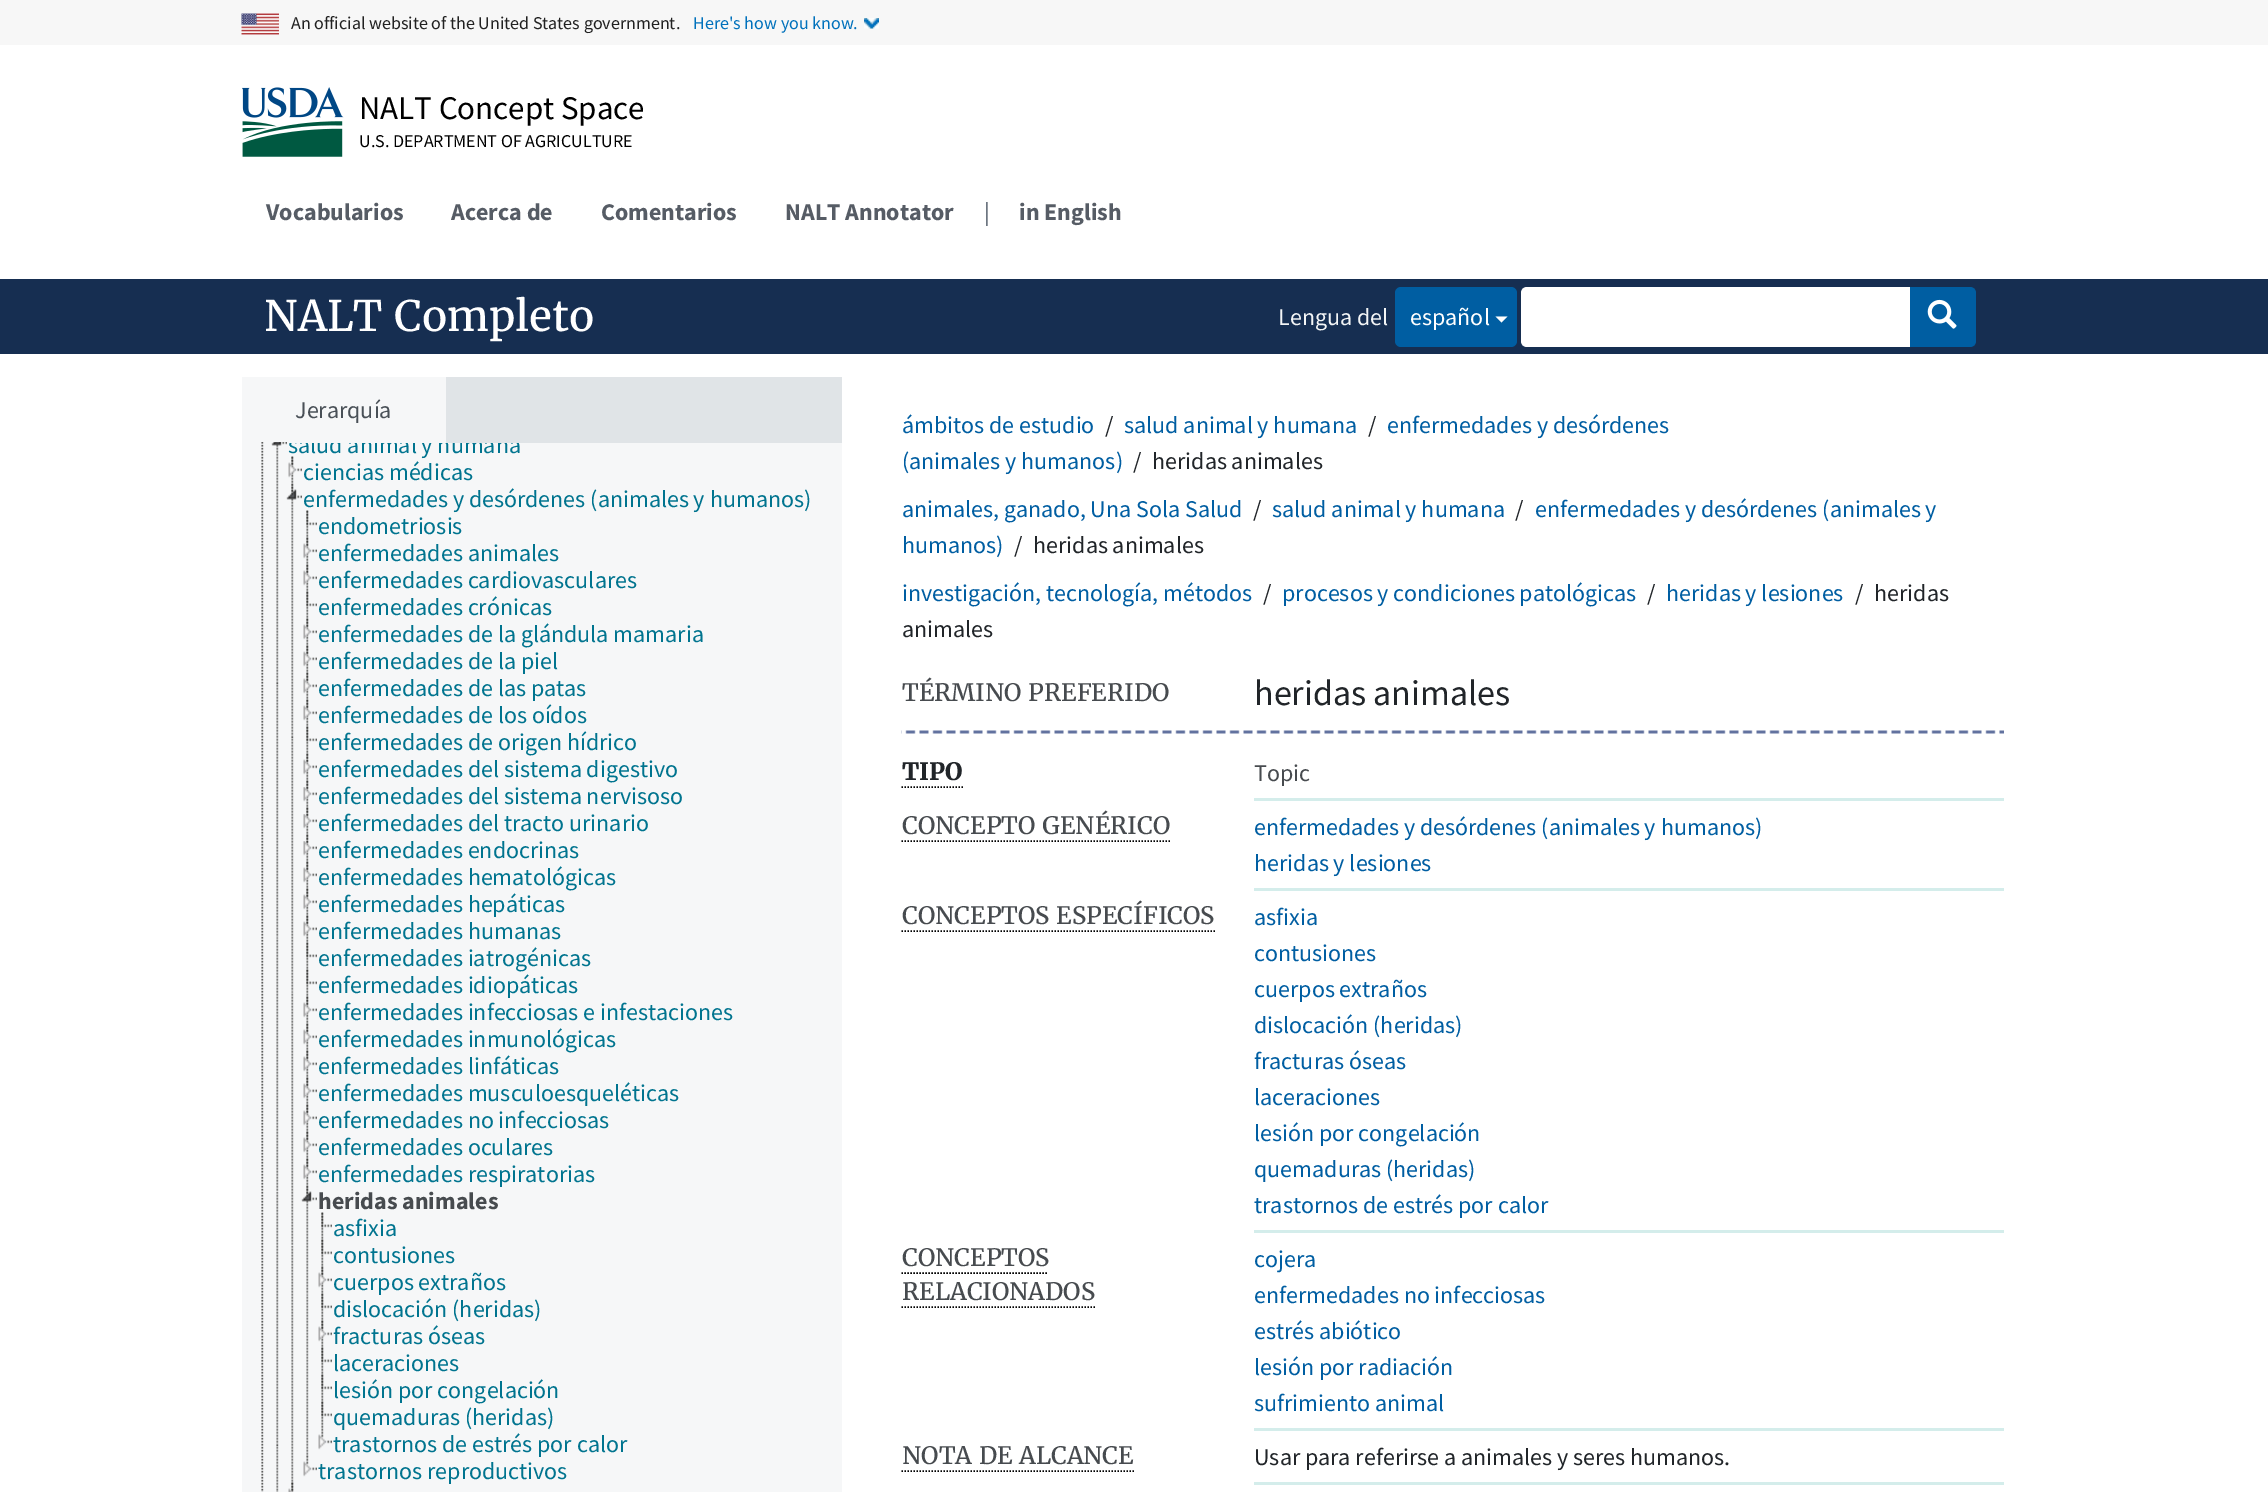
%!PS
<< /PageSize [2268 1492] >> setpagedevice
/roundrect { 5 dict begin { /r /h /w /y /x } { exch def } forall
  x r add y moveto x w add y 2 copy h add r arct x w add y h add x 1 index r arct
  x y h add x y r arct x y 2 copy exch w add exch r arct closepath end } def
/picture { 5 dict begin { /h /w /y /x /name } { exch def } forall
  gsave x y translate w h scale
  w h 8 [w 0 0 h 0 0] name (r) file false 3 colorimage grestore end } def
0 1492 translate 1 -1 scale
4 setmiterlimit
1 setgray
0 0 2268 1492 rectfill
0.969 setgray
0 0 2268 45 rectfill
(img1.rgb) 241 13 38 22 picture
/SourceSansPro-Regular [18 0 0 -18 0 0] selectfont
0.129 setgray
291 29 moveto (An official website of the United States government.) show
(img2.rgb) 864 18 15 11 picture
0 0.443 0.737 setrgbcolor
693 29 moveto (Here's how you know.) show
(img3.rgb) 242 87 102 70 picture
/SourceSansPro-Regular [33 0 0 -33 0 0] selectfont
0 setgray
359 119 moveto (NALT Concept Space) show
/SourceSansPro-Regular [18 0 0 -18 0 0] selectfont
359 147 moveto (U.S. DEPARTMENT OF AGRICULTURE) show
/SourceSansPro-Bold [24 0 0 -24 0 0] selectfont
0.337 0.361 0.396 setrgbcolor
266 220 moveto (Vocabularios) show
451 220 moveto (Acerca de) show
601 220 moveto (Comentarios) show
785 220 moveto (NALT Annotator) show
/SourceSansPro-Regular [24 0 0 -24 0 0] selectfont
0.224 0.271 0.329 setrgbcolor
984 220 moveto (|) show
/SourceSansPro-Bold [24 0 0 -24 0 0] selectfont
0.337 0.361 0.396 setrgbcolor
1019 220 moveto (in English) show
0.086 0.18 0.318 setrgbcolor
0 279 2268 75 rectfill
/Merriweather-Regular [42 0 0 -42 0 0] selectfont
1 setgray
264 331 moveto (NALT Completo) show
/SourceSansPro-Regular [24 0 0 -24 0 0] selectfont
0.953 0.961 0.965 setrgbcolor
1278 325 moveto (Lengua del) show
0 0.369 0.635 setrgbcolor
1395 287 122 60 6 roundrect fill
1 setgray
1410 325 moveto (español) show
newpath 1495.5 316.5 moveto 1507.5 316.5 lineto 1501.5 322.5 lineto closepath fill
newpath 1527 287 moveto 1911 287 lineto 1911 347 lineto 1527 347 lineto 1523.5 347 1521 344.5 1521 341 curveto 1521 293 lineto 1521 289.5 1523.5 287 1527 287 curveto closepath fill
0 0.369 0.635 setrgbcolor
newpath 1910 287 moveto 1970 287 lineto 1973.5 287 1976 289.5 1976 293 curveto 1976 341 lineto 1976 344.5 1973.5 347 1970 347 curveto 1910 347 lineto closepath fill
(img4.rgb) 1927 299 30 30 picture
0.878 0.894 0.906 setrgbcolor
446 377 396 66 rectfill
0.965 0.969 0.973 setrgbcolor
242 377 204 66 rectfill
0.286 0.314 0.341 setrgbcolor
295 418 moveto (Jerarquía) show
0.965 0.969 0.973 setrgbcolor
242 443 600 1049 rectfill
(img5.rgb) 261 442 3 1050 picture
(img6.rgb) 276 444 3 1048 picture
(img7.rgb) 271 442 16 4 picture
(img8.rgb) 291 456 3 28 picture
gsave
242 443 600 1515 rectclip
0 0.455 0.561 setrgbcolor
288 453 moveto (salud animal y humana) show
grestore
(img9.rgb) 288 456 14 22 picture
0 0.455 0.561 setrgbcolor
303 480 moveto (ciencias médicas) show
(img10.rgb) 291 483 3 1001 picture
(img11.rgb) 286 483 16 17 picture
(img8.rgb) 306 510 3 28 picture
303 507 moveto (enfermedades y desórdenes \(animales y humanos\)) show
(img12.rgb) 306 510 11 16 picture
318 534 moveto (endometriosis) show
(img13.rgb) 306 537 3 28 picture
(img14.rgb) 303 537 14 22 picture
318 561 moveto (enfermedades animales) show
(img13.rgb) 306 564 3 28 picture
(img14.rgb) 303 564 14 22 picture
318 588 moveto (enfermedades cardiovasculares) show
(img13.rgb) 306 591 3 28 picture
(img15.rgb) 306 591 11 16 picture
318 615 moveto (enfermedades crónicas) show
(img13.rgb) 306 618 3 28 picture
(img14.rgb) 303 618 14 22 picture
318 642 moveto (enfermedades de la glándula mamaria) show
(img13.rgb) 306 645 3 28 picture
(img14.rgb) 303 645 14 22 picture
318 669 moveto (enfermedades de la piel) show
(img13.rgb) 306 672 3 28 picture
(img14.rgb) 303 672 14 22 picture
318 696 moveto (enfermedades de las patas) show
(img13.rgb) 306 699 3 28 picture
(img14.rgb) 303 699 14 22 picture
318 723 moveto (enfermedades de los oídos) show
(img13.rgb) 306 726 3 28 picture
(img15.rgb) 306 726 11 16 picture
318 750 moveto (enfermedades de origen hídrico) show
(img16.rgb) 306 753 3 28 picture
(img17.rgb) 303 753 14 22 picture
318 777 moveto (enfermedades del sistema digestivo) show
(img13.rgb) 306 780 3 28 picture
(img18.rgb) 303 780 14 22 picture
318 804 moveto (enfermedades del sistema nervisoso) show
(img13.rgb) 306 807 3 28 picture
(img18.rgb) 303 807 14 22 picture
318 831 moveto (enfermedades del tracto urinario) show
(img13.rgb) 306 834 3 28 picture
(img18.rgb) 303 834 14 22 picture
318 858 moveto (enfermedades endocrinas) show
(img13.rgb) 306 861 3 28 picture
(img14.rgb) 303 861 14 22 picture
318 885 moveto (enfermedades hematológicas) show
(img13.rgb) 306 888 3 28 picture
(img14.rgb) 303 888 14 22 picture
318 912 moveto (enfermedades hepáticas) show
(img13.rgb) 306 915 3 28 picture
(img14.rgb) 303 915 14 22 picture
318 939 moveto (enfermedades humanas) show
(img13.rgb) 306 942 3 28 picture
(img15.rgb) 306 942 11 16 picture
318 966 moveto (enfermedades iatrogénicas) show
(img13.rgb) 306 969 3 28 picture
(img15.rgb) 306 969 11 16 picture
318 993 moveto (enfermedades idiopáticas) show
(img13.rgb) 306 996 3 28 picture
(img14.rgb) 303 996 14 22 picture
318 1020 moveto (enfermedades infecciosas e infestaciones) show
(img13.rgb) 306 1023 3 28 picture
(img14.rgb) 303 1023 14 22 picture
318 1047 moveto (enfermedades inmunológicas) show
(img13.rgb) 306 1050 3 28 picture
(img14.rgb) 303 1050 14 22 picture
318 1074 moveto (enfermedades linfáticas) show
(img13.rgb) 306 1077 3 28 picture
(img19.rgb) 303 1077 14 22 picture
318 1101 moveto (enfermedades musculoesqueléticas) show
(img13.rgb) 306 1104 3 28 picture
(img14.rgb) 303 1104 14 22 picture
318 1128 moveto (enfermedades no infecciosas) show
(img13.rgb) 306 1131 3 28 picture
(img14.rgb) 303 1131 14 22 picture
318 1155 moveto (enfermedades oculares) show
(img13.rgb) 306 1158 3 28 picture
(img14.rgb) 303 1158 14 22 picture
318 1182 moveto (enfermedades respiratorias) show
(img20.rgb) 306 1185 3 272 picture
(img11.rgb) 301 1185 16 17 picture
/SourceSansPro-Bold [24 0 0 -24 0 0] selectfont
0.278 0.294 0.31 setrgbcolor
318 1209 moveto (heridas animales) show
(img8.rgb) 321 1212 3 28 picture
(img12.rgb) 321 1212 11 16 picture
/SourceSansPro-Regular [24 0 0 -24 0 0] selectfont
0 0.455 0.561 setrgbcolor
333 1236 moveto (asfixia) show
(img13.rgb) 321 1239 3 28 picture
(img15.rgb) 321 1239 11 16 picture
333 1263 moveto (contusiones) show
(img21.rgb) 321 1266 3 28 picture
(img22.rgb) 318 1266 14 22 picture
333 1290 moveto (cuerpos extraños) show
(img13.rgb) 321 1293 3 28 picture
(img15.rgb) 321 1293 11 16 picture
333 1317 moveto (dislocación \(heridas\)) show
(img13.rgb) 321 1320 3 28 picture
(img14.rgb) 318 1320 14 22 picture
333 1344 moveto (fracturas óseas) show
(img13.rgb) 321 1347 3 28 picture
(img15.rgb) 321 1347 11 16 picture
333 1371 moveto (laceraciones) show
(img13.rgb) 321 1374 3 28 picture
(img15.rgb) 321 1374 11 16 picture
333 1398 moveto (lesión por congelación) show
(img13.rgb) 321 1401 3 28 picture
(img15.rgb) 321 1401 11 16 picture
333 1425 moveto (quemaduras \(heridas\)) show
(img23.rgb) 318 1428 14 22 picture
333 1452 moveto (trastornos de estrés por calor) show
(img24.rgb) 303 1455 14 22 picture
318 1479 moveto (trastornos reproductivos) show
(img25.rgb) 291 1482 3 10 picture
(img26.rgb) 288 1482 6 10 picture
0 0.369 0.635 setrgbcolor
902 433 moveto (ámbitos de estudio) show
0.129 0.145 0.161 setrgbcolor
1105 433 moveto (/) show
0 0.369 0.635 setrgbcolor
1124 433 moveto (salud animal y humana) show
0.129 0.145 0.161 setrgbcolor
1368 433 moveto (/) show
0 0.369 0.635 setrgbcolor
1387 433 moveto (enfermedades y desórdenes) show
902 469 moveto (\(animales y humanos\)) show
0.129 0.145 0.161 setrgbcolor
1133 469 moveto (/) show
1152 469 moveto (heridas animales) show
0 0.369 0.635 setrgbcolor
902 517 moveto (animales, ganado, Una Sola Salud) show
0.129 0.145 0.161 setrgbcolor
1253 517 moveto (/) show
0 0.369 0.635 setrgbcolor
1272 517 moveto (salud animal y humana) show
0.129 0.145 0.161 setrgbcolor
1515 517 moveto (/) show
0 0.369 0.635 setrgbcolor
1535 517 moveto (enfermedades y desórdenes \(animales y) show
902 553 moveto (humanos\)) show
0.129 0.145 0.161 setrgbcolor
1014 553 moveto (/) show
1033 553 moveto (heridas animales) show
0 0.369 0.635 setrgbcolor
902 601 moveto (investigación, tecnología, métodos) show
0.129 0.145 0.161 setrgbcolor
1263 601 moveto (/) show
0 0.369 0.635 setrgbcolor
1282 601 moveto (procesos y condiciones patológicas) show
0.129 0.145 0.161 setrgbcolor
1647 601 moveto (/) show
0 0.369 0.635 setrgbcolor
1666 601 moveto (heridas y lesiones) show
0.129 0.145 0.161 setrgbcolor
1855 601 moveto (/) show
1874 601 moveto (heridas) show
902 637 moveto (animales) show
/Merriweather-Regular [24 0 0 -24 0 0] selectfont
0.278 0.294 0.31 setrgbcolor
902 701 moveto (TÉRMINO PREFERIDO) show
/SourceSansPro-Regular [36 0 0 -36 0 0] selectfont
0.129 0.145 0.161 setrgbcolor
1254 705 moveto (heridas animales) show
(img27.rgb) 901 730 1103 4 picture
/Merriweather-Bold [24 0 0 -24 0 0] selectfont
902 780 moveto (TIPO) show
0 setgray
1.5 setlinewidth
[1.5 1.5] 0 setdash
newpath 901.5 787 moveto 963 787 lineto stroke
0.831 0.929 0.922 setrgbcolor
1254 798 750 3 rectfill
/SourceSansPro-Regular [24 0 0 -24 0 0] selectfont
0.278 0.294 0.31 setrgbcolor
1254 781 moveto (Topic) show
/Merriweather-Regular [24 0 0 -24 0 0] selectfont
902 834 moveto (CONCEPTO GENÉRICO) show
0 setgray
newpath 901.5 841 moveto 1170 841 lineto stroke
0.831 0.929 0.922 setrgbcolor
1254 888 750 3 rectfill
/SourceSansPro-Regular [24 0 0 -24 0 0] selectfont
0 0.369 0.635 setrgbcolor
1254 835 moveto (enfermedades y desórdenes \(animales y humanos\)) show
1254 871 moveto (heridas y lesiones) show
/Merriweather-Regular [24 0 0 -24 0 0] selectfont
0.278 0.294 0.31 setrgbcolor
902 924 moveto (CONCEPTOS ESPECÍFICOS) show
0 setgray
newpath 901.5 931 moveto 1215 931 lineto stroke
0.831 0.929 0.922 setrgbcolor
1254 1230 750 3 rectfill
/SourceSansPro-Regular [24 0 0 -24 0 0] selectfont
0 0.369 0.635 setrgbcolor
1254 925 moveto (asfixia) show
1254 961 moveto (contusiones) show
1254 997 moveto (cuerpos extraños) show
1254 1033 moveto (dislocación \(heridas\)) show
1254 1069 moveto (fracturas óseas) show
1254 1105 moveto (laceraciones) show
1254 1141 moveto (lesión por congelación) show
1254 1177 moveto (quemaduras \(heridas\)) show
1254 1213 moveto (trastornos de estrés por calor) show
/Merriweather-Regular [24 0 0 -24 0 0] selectfont
0.278 0.294 0.31 setrgbcolor
902 1266 moveto (CONCEPTOS) show
0 setgray
newpath 901.5 1273 moveto 1048.5 1273 lineto stroke
0.278 0.294 0.31 setrgbcolor
902 1300 moveto (RELACIONADOS) show
0 setgray
newpath 901.5 1307 moveto 1095 1307 lineto stroke
0.831 0.929 0.922 setrgbcolor
1254 1428 750 3 rectfill
/SourceSansPro-Regular [24 0 0 -24 0 0] selectfont
0 0.369 0.635 setrgbcolor
1254 1267 moveto (cojera) show
1254 1303 moveto (enfermedades no infecciosas) show
1254 1339 moveto (estrés abiótico) show
1254 1375 moveto (lesión por radiación) show
1254 1411 moveto (sufrimiento animal) show
/Merriweather-Regular [24 0 0 -24 0 0] selectfont
0.278 0.294 0.31 setrgbcolor
902 1464 moveto (NOTA DE ALCANCE) show
0 setgray
newpath 901.5 1471 moveto 1134 1471 lineto stroke
0.831 0.929 0.922 setrgbcolor
1254 1482 750 3 rectfill
/SourceSansPro-Regular [24 0 0 -24 0 0] selectfont
0.129 0.145 0.161 setrgbcolor
1254 1465 moveto (Usar para referirse a animales y seres humanos.) show
showpage
